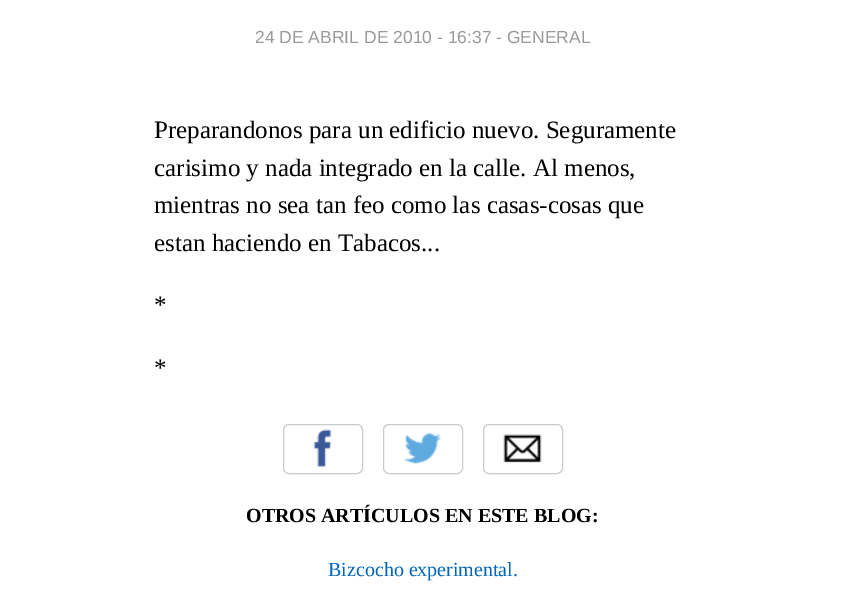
%!PS
<< /PageSize [845 594] >> setpagedevice
/roundrect { 5 dict begin { /r /h /w /y /x } { exch def } forall
  x r add y moveto x w add y 2 copy h add r arct x w add y h add x 1 index r arct
  x y h add x y r arct x y 2 copy exch w add exch r arct closepath end } def
/picture { 5 dict begin { /h /w /y /x /name } { exch def } forall
  gsave x y translate w h scale
  w h 8 [w 0 0 h 0 0] name (r) file false 3 colorimage grestore end } def
0 594 translate 1 -1 scale
4 setmiterlimit
1 setgray
0 0 845 594 rectfill
/LiberationSans-Regular [17.5 0 0 -17.5 0 0] selectfont
0.6 setgray
255 43 moveto (24 DE ABRIL DE 2010 - 16:37 - GENERAL) show
/LiberationSerif-Regular [25 0 0 -25 0 0] selectfont
0 setgray
154 138 moveto (Preparandonos para un edificio nuevo. Seguramente) show
154 176 moveto (carisimo y nada integrado en la calle. Al menos,) show
154 213 moveto (mientras no sea tan feo como las casas-cosas que) show
154 251 moveto (estan haciendo en Tabacos...) show
154 313 moveto (*) show
154 376 moveto (*) show
(img1.rgb) 313 429 19 38 picture
0.8 setgray
283.5 424.5 79 49 5.5 roundrect stroke
(img2.rgb) 404 433 38 31 picture
383.5 424.5 79 49 5.5 roundrect stroke
(img3.rgb) 503 434 39 29 picture
483.5 424.5 79 49 5.5 roundrect stroke
/LiberationSerif-Bold [20 0 0 -20 0 0] selectfont
0 setgray
246 522 moveto (OTROS ARTÍCULOS EN ESTE BLOG:) show
/LiberationSerif-Regular [20 0 0 -20 0 0] selectfont
0 0.4 0.733 setrgbcolor
328 576 moveto (Bizcocho experimental.) show
showpage
